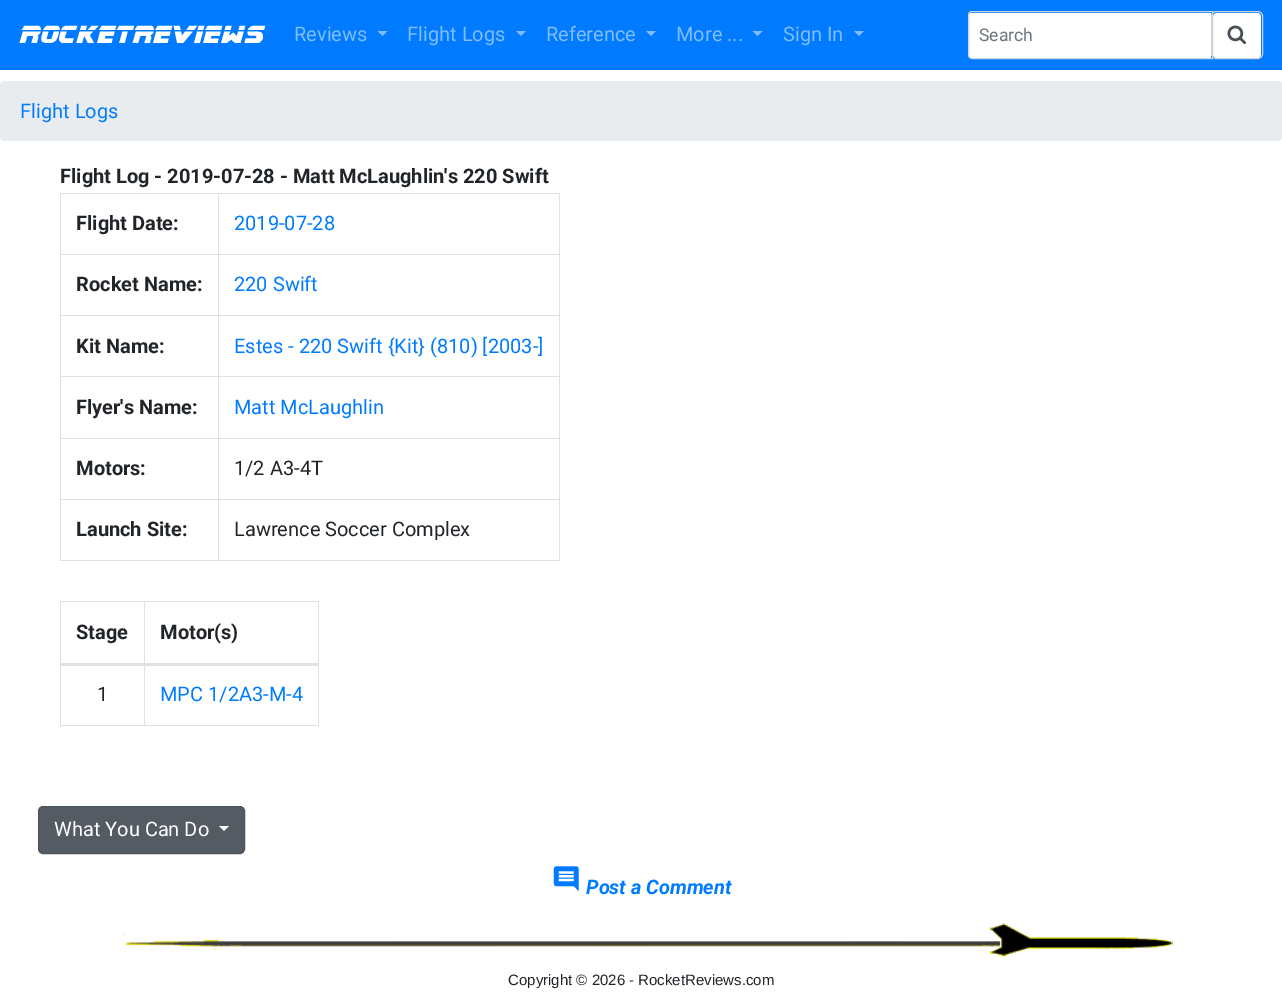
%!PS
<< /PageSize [1282 1007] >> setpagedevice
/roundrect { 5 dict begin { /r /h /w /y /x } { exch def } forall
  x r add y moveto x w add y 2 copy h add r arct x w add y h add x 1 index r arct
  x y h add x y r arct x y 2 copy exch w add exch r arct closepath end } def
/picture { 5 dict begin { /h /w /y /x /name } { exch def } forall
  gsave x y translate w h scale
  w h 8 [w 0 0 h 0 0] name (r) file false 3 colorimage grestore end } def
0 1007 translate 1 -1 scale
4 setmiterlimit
1 setgray
0 0 1282 1007 rectfill
0 0.482 1 setrgbcolor
0 0 1282 70 rectfill
/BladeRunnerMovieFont-BoldItalic [25 0 0 -25 0 0] selectfont
1 setgray
20 43 moveto (RocketReviews) show
/Roboto-Regular [20 0 0 -20 0 0] selectfont
0.502 0.741 1 setrgbcolor
294 41 moveto (Reviews) show
newpath 377.5 31 moveto 387.5 31 lineto 382.5 36 lineto closepath fill
407 41 moveto (Flight Logs) show
newpath 516 31 moveto 526 31 lineto 521 36 lineto closepath fill
546 41 moveto (Reference) show
newpath 646 31 moveto 656 31 lineto 651 36 lineto closepath fill
676 41 moveto (More ...) show
newpath 752.5 31 moveto 762.5 31 lineto 757.5 36 lineto closepath fill
783 41 moveto (Sign In) show
newpath 854 31 moveto 864 31 lineto 859 36 lineto closepath fill
1 setgray
newpath 971.5 13 moveto 1211 13 lineto 1211 58 lineto 971.5 58 lineto 970 58 969 57 969 55.5 curveto 969 15.5 lineto 969 14 970 13 971.5 13 curveto closepath fill
1213 13 48 45 4 roundrect fill
0.808 0.831 0.855 setrgbcolor
1211.5 11.5 51 47 4.5 roundrect stroke
newpath 972 11.5 moveto 1212.5 11.5 lineto 1212.5 58.5 lineto 972 58.5 lineto 970 58.5 968.5 57 968.5 55 curveto 968.5 15 lineto 968.5 13 970 11.5 972 11.5 curveto closepath stroke
/Roboto-Regular [17.5 0 0 -17.5 0 0] selectfont
0.424 0.459 0.49 setrgbcolor
979 41 moveto (Search) show
(img1.rgb) 1227 25 20 20 picture
0.914 0.925 0.937 setrgbcolor
0 81 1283 60 5 roundrect fill
/Roboto-Regular [20 0 0 -20 0 0] selectfont
0 0.482 1 setrgbcolor
20 118 moveto (Flight Logs) show
/Roboto-Bold [20 0 0 -20 0 0] selectfont
0.129 0.145 0.161 setrgbcolor
60 183 moveto (Flight Log - 2019-07-28 - Matt McLaughlin's 220 Swift) show
0.871 0.886 0.902 setrgbcolor
60 193 500 1 rectfill
559 193 1 368 rectfill
60 560 500 1 rectfill
60 193 1 368 rectfill
0.129 0.145 0.161 setrgbcolor
76 230 moveto (Flight Date:) show
0.871 0.886 0.902 setrgbcolor
218 254 342 1 rectfill
218 315 342 1 rectfill
218 376 342 1 rectfill
218 438 342 1 rectfill
218 499 342 1 rectfill
218 499 1 62 rectfill
60 499 159 1 rectfill
218 438 1 62 rectfill
60 438 159 1 rectfill
218 376 1 63 rectfill
60 376 159 1 rectfill
218 315 1 63 rectfill
60 315 159 1 rectfill
218 254 1 62 rectfill
60 254 159 1 rectfill
218 193 1 62 rectfill
/Roboto-Regular [20 0 0 -20 0 0] selectfont
0 0.482 1 setrgbcolor
234 230 moveto (2019-07-28) show
/Roboto-Bold [20 0 0 -20 0 0] selectfont
0.129 0.145 0.161 setrgbcolor
76 291 moveto (Rocket Name:) show
/Roboto-Regular [20 0 0 -20 0 0] selectfont
0 0.482 1 setrgbcolor
234 291 moveto (220 Swift) show
/Roboto-Bold [20 0 0 -20 0 0] selectfont
0.129 0.145 0.161 setrgbcolor
76 353 moveto (Kit Name:) show
/Roboto-Regular [20 0 0 -20 0 0] selectfont
0 0.482 1 setrgbcolor
234 353 moveto (Estes - 220 Swift {Kit} \(810\) [2003-]) show
/Roboto-Bold [20 0 0 -20 0 0] selectfont
0.129 0.145 0.161 setrgbcolor
76 414 moveto (Flyer's Name:) show
/Roboto-Regular [20 0 0 -20 0 0] selectfont
0 0.482 1 setrgbcolor
234 414 moveto (Matt McLaughlin) show
/Roboto-Bold [20 0 0 -20 0 0] selectfont
0.129 0.145 0.161 setrgbcolor
76 475 moveto (Motors:) show
/Roboto-Regular [20 0 0 -20 0 0] selectfont
234 475 moveto (1/2 A3-4T) show
/Roboto-Bold [20 0 0 -20 0 0] selectfont
76 536 moveto (Launch Site:) show
/Roboto-Regular [20 0 0 -20 0 0] selectfont
234 536 moveto (Lawrence Soccer Complex) show
0.871 0.886 0.902 setrgbcolor
60 601 259 1 rectfill
318 601 1 125 rectfill
60 725 259 1 rectfill
60 601 1 125 rectfill
/Roboto-Bold [20 0 0 -20 0 0] selectfont
0.129 0.145 0.161 setrgbcolor
76 639 moveto (Stage) show
0.871 0.886 0.902 setrgbcolor
144 601 1 125 rectfill
60 663 259 3 rectfill
0.129 0.145 0.161 setrgbcolor
160 639 moveto (Motor\(s\)) show
/Roboto-Regular [20 0 0 -20 0 0] selectfont
97 701 moveto (1) show
0 0.482 1 setrgbcolor
160 701 moveto (MPC 1/2A3-M-4) show
0.329 0.357 0.384 setrgbcolor
38.5 806.5 206 47 4.5 roundrect gsave fill grestore
0.306 0.333 0.357 setrgbcolor
stroke
1 setgray
54 836 moveto (What You Can Do) show
newpath 219 826 moveto 229 826 lineto 224 831 lineto closepath fill
(img2.rgb) 553 866 26 26 picture
/Roboto-BoldItalic [20 0 0 -20 0 0] selectfont
0 0.482 1 setrgbcolor
586 894 moveto (Post a Comment) show
(img3.rgb) 241 941 932 6 picture
(img4.rgb) 110 933 132 18 picture
(img5.rgb) 982 923 191 34 picture
/LiberationSans-Regular [15 0 0 -15 0 0] selectfont
0.129 0.145 0.161 setrgbcolor
508 985 moveto (Copyright © 2026 - RocketReviews.com) show
showpage
